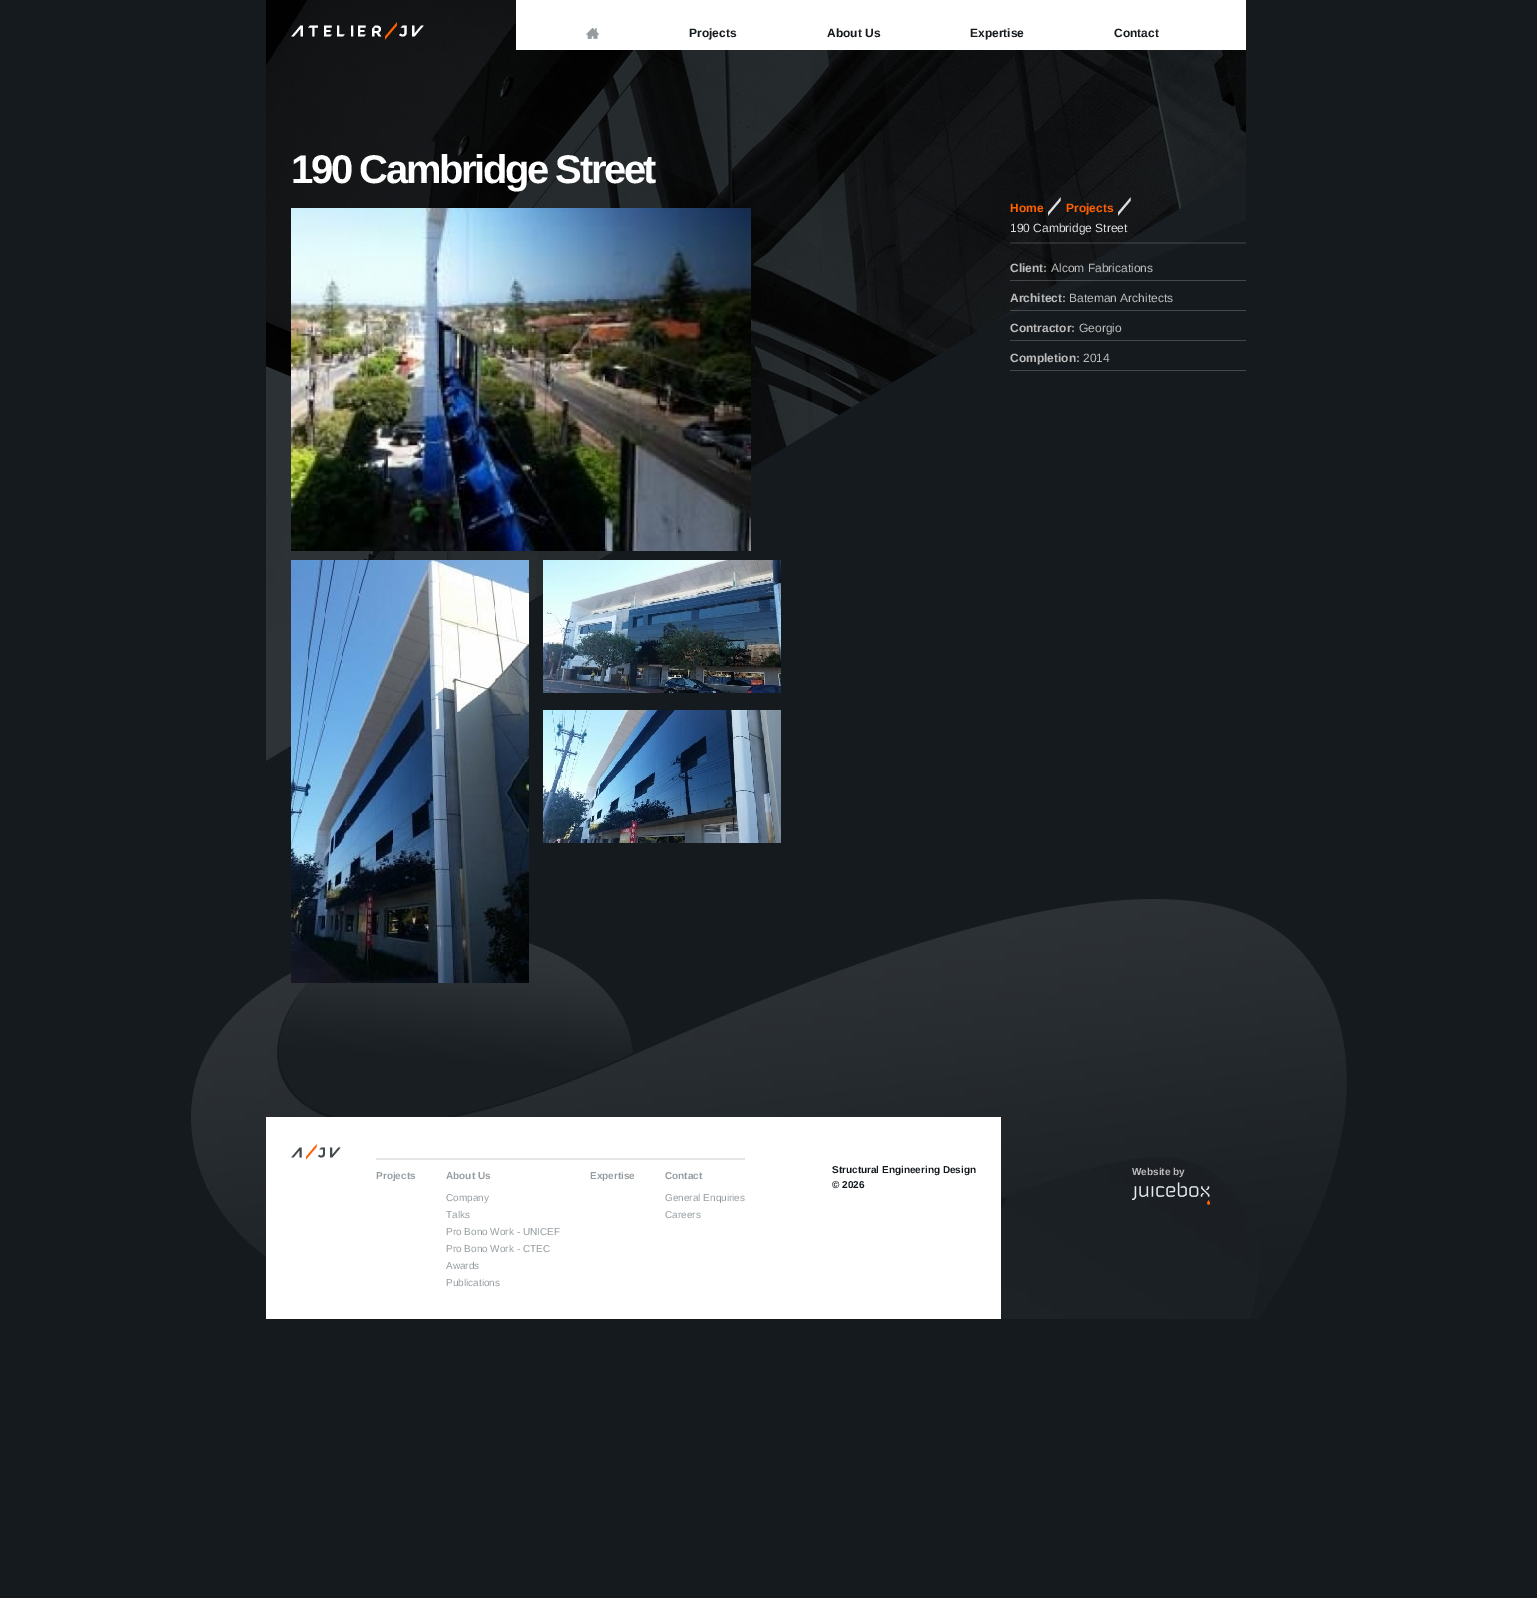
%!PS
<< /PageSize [1537 1598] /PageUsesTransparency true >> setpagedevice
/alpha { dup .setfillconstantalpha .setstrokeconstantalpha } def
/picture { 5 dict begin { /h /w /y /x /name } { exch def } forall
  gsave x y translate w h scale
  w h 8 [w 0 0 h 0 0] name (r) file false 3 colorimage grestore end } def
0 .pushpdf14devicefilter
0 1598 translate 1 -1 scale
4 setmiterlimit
0.082 0.102 0.118 setrgbcolor
0 0 1537 1598 rectfill
(img1.rgb) 266 0 980 761 picture
/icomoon-Regular [11 0 0 -11 0 0] selectfont
1 setgray
291 36 moveto 5.5 0 (ATELIER) ashow
/icomoon-Regular [18 0 0 -18 0 0] selectfont
1 0.376 0 setrgbcolor
385 39 moveto 5.5 0 (/) ashow
/icomoon-Regular [11 0 0 -11 0 0] selectfont
1 setgray
399 36 moveto 5.5 0 (JV) ashow
516 0 730 50 rectfill
(img2.rgb) 586 27 14 12 picture
/LiberationSans-Bold [12 0 0 -12 0 0] selectfont
0.082 0.102 0.118 setrgbcolor
689 37 moveto (Projects) show
827 37 moveto (About Us) show
970 37 moveto (Expertise) show
1114 37 moveto (Contact) show
/LiberationSans-Bold [40 0 0 -40 0 0] selectfont
1 setgray
291 183 moveto -2.4 0 (190 Cambridge Street) ashow
(img3.rgb) 291 208 460 343 picture
(img7.rgb) 191 899 1156 420 picture
(img4.rgb) 291 560 238 423 picture
(img5.rgb) 543 560 238 133 picture
(img6.rgb) 543 710 238 133 picture
0.1 alpha
1010 242 236 2 rectfill
/LiberationSans-Bold [12 0 0 -12 0 0] selectfont
1 alpha
1 0.376 0 setrgbcolor
1010 212 moveto (Home) show
/icomoon-Regular [19 0 0 -19 0 0] selectfont
0.871 setgray
1048 215 moveto (/) show
/LiberationSans-Bold [12 0 0 -12 0 0] selectfont
1 0.376 0 setrgbcolor
1066 212 moveto (Projects) show
/icomoon-Regular [19 0 0 -19 0 0] selectfont
0.871 setgray
1118 215 moveto (/) show
/LiberationSans-Regular [12 0 0 -12 0 0] selectfont
1010 232 moveto (190 Cambridge Street) show
0.2 alpha
1 setgray
1010 280 236 1 rectfill
/LiberationSans-Bold [12 0 0 -12 0 0] selectfont
1 alpha
0.737 setgray
1010 272 moveto (Client:) show
/LiberationSans-Regular [12 0 0 -12 0 0] selectfont
1051 272 moveto (Alcom Fabrications) show
0.2 alpha
1 setgray
1010 310 236 1 rectfill
/LiberationSans-Bold [12 0 0 -12 0 0] selectfont
1 alpha
0.737 setgray
1010 302 moveto (Architect:) show
/LiberationSans-Regular [12 0 0 -12 0 0] selectfont
1069 302 moveto (Bateman Architects) show
0.267 0.282 0.294 setrgbcolor
1010 340 236 1 rectfill
/LiberationSans-Bold [12 0 0 -12 0 0] selectfont
0.737 setgray
1010 332 moveto (Contractor:) show
/LiberationSans-Regular [12 0 0 -12 0 0] selectfont
1079 332 moveto (Georgio) show
0.267 0.282 0.294 setrgbcolor
1010 370 236 1 rectfill
/LiberationSans-Bold [12 0 0 -12 0 0] selectfont
0.737 setgray
1010 362 moveto (Completion:) show
/LiberationSans-Regular [12 0 0 -12 0 0] selectfont
1083 362 moveto (2014) show
1 setgray
266 1117 735 202 rectfill
/icomoon-Regular [10 0 0 -10 0 0] selectfont
0.263 0.294 0.306 setrgbcolor
291 1157 moveto 5 0 (A) ashow
/icomoon-Regular [16 0 0 -16 0 0] selectfont
1 0.376 0 setrgbcolor
306 1159 moveto 5 0 (/) ashow
/icomoon-Regular [10 0 0 -10 0 0] selectfont
0.263 0.294 0.306 setrgbcolor
318 1157 moveto 5 0 (JV) ashow
0.902 setgray
376 1158 369 2 rectfill
/LiberationSans-Bold [10 0 0 -10 0 0] selectfont
0.584 0.612 0.627 setrgbcolor
376 1179 moveto (Projects) show
446 1179 moveto (About Us) show
/LiberationSans-Regular [10 0 0 -10 0 0] selectfont
446 1201 moveto (Company) show
446 1218 moveto (Talks) show
446 1235 moveto (Pro Bono Work - UNICEF) show
446 1252 moveto (Pro Bono Work - CTEC) show
446 1269 moveto (Awards) show
446 1286 moveto (Publications) show
/LiberationSans-Bold [10 0 0 -10 0 0] selectfont
590 1179 moveto (Expertise) show
665 1179 moveto (Contact) show
/LiberationSans-Regular [10 0 0 -10 0 0] selectfont
665 1201 moveto (General Enquiries) show
665 1218 moveto (Careers) show
/LiberationSans-Bold [10 0 0 -10 0 0] selectfont
0.082 0.102 0.118 setrgbcolor
832 1173 moveto (Structural Engineering Design) show
832 1188 moveto (© 2026) show
0.737 setgray
1132 1175 moveto (Website by) show
(img8.rgb) 1132 1182 78 23 picture
.poppdf14devicefilter showpage
